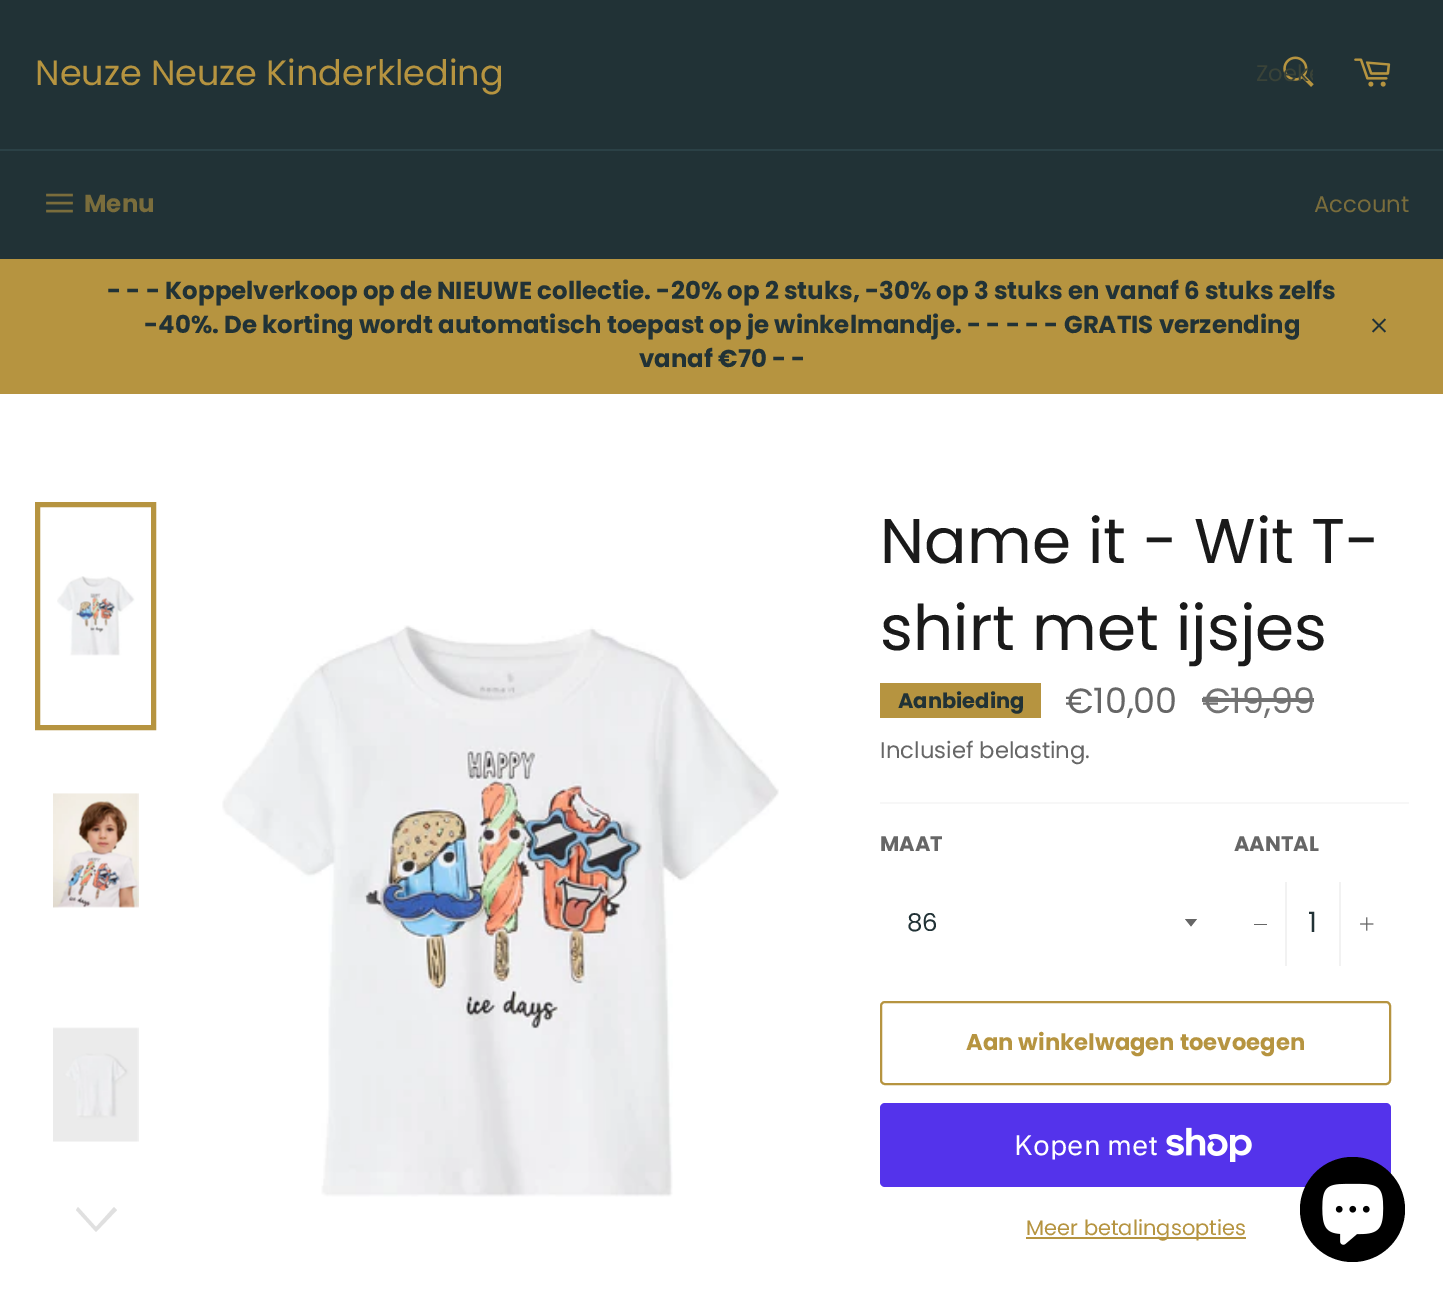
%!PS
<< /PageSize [1443 1298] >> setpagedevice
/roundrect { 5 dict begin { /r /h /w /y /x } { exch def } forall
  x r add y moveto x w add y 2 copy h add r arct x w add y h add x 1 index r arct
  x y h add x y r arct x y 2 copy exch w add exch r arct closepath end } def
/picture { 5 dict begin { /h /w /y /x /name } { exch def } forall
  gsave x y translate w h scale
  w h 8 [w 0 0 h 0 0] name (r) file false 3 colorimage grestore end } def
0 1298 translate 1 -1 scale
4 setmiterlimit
0.129 0.196 0.212 setrgbcolor
0 0 1443 1298 rectfill
/Poppins-Regular [35 0 0 -35 0 0] selectfont
0.714 0.58 0.251 setrgbcolor
35 85 moveto (Neuze Neuze Kinderkleding) show
(img1.rgb) 1283 56 31 31 picture
gsave
1257 58 56 35 rectclip
/Poppins-Regular [22.75 0 0 -22.75 0 0] selectfont
0.227 0.263 0.22 setrgbcolor
1256 81 moveto (Zoeke) show
grestore
(img2.rgb) 1354 58 37 29 picture
0.169 0.255 0.275 setrgbcolor
0 149 1443 2 rectfill
(img3.rgb) 46 193 27 20 picture
/Poppins-Bold [24.5 0 0 -24.5 0 0] selectfont
0.478 0.427 0.235 setrgbcolor
84 212 moveto (Menu) show
/Poppins-Regular [22.75 0 0 -22.75 0 0] selectfont
1314 212 moveto (Account) show
0.714 0.58 0.251 setrgbcolor
0 259 1443 135 rectfill
/Poppins-Bold [24.5 0 0 -24.5 0 0] selectfont
0.129 0.196 0.212 setrgbcolor
107 299 moveto (- - - Koppelverkoop op de NIEUWE collectie. -20% op 2 stuks, -30% op 3 stuks en vanaf 6 stuks zelfs) show
144 333 moveto (-40%. De korting wordt automatisch toepast op je winkelmandje. - - - - - GRATIS verzending) show
639 367 moveto (vanaf €70 - -) show
(img4.rgb) 1372 318 14 15 picture
1 setgray
0 394 1443 904 rectfill
(img5.rgb) 57 576 78 80 picture
0.714 0.58 0.251 setrgbcolor
5 setlinewidth
37.5 504.5 116 223 rectstroke
(img6.rgb) 53 793 86 115 picture
(img7.rgb) 53 1027 86 115 picture
0.878 setgray
newpath 114 1207 moveto 117 1210 lineto 96 1232 lineto 76 1210 lineto 78 1207 lineto 96 1227 lineto closepath fill
(img8.rgb) 222 625 557 572 picture
/Poppins-Regular [63 0 0 -63 0 0] selectfont
0.102 setgray
880 563 moveto (Name it - Wit T-) show
880 650 moveto (shirt met ijsjes) show
0.714 0.58 0.251 setrgbcolor
880 683 161 35 rectfill
/Poppins-Bold [21 0 0 -21 0 0] selectfont
0.129 0.196 0.212 setrgbcolor
898 708 moveto (Aanbieding) show
/Poppins-Regular [35 0 0 -35 0 0] selectfont
0.4 setgray
1065 713 moveto (€10,00) show
0.451 setgray
1202 713 moveto (€19,99) show
1202 698 112 4 rectfill
/Poppins-Regular [22.75 0 0 -22.75 0 0] selectfont
0.4 setgray
880 758 moveto (Inclusief belasting.) show
0.969 setgray
880 802 529 2 rectfill
/Poppins-Bold [21 0 0 -21 0 0] selectfont
0.4 setgray
880 851 moveto (MAAT) show
newpath 1185 919 moveto 1191 926.5 lineto 1197 919 lineto closepath fill
/Poppins-Regular [24.5 0 0 -24.5 0 0] selectfont
0.129 0.196 0.212 setrgbcolor
907 931 moveto (86) show
/Poppins-Bold [21 0 0 -21 0 0] selectfont
0.4 setgray
1234 851 moveto (AANTAL) show
0.949 setgray
1285 882 2 84 rectfill
0.4 setgray
1254 924 13 1 rectfill
/Poppins-Regular [28 0 0 -28 0 0] selectfont
0.129 0.196 0.212 setrgbcolor
1308 932 moveto (1) show
0.949 setgray
1339 882 2 84 rectfill
(img9.rgb) 1360 917 14 14 picture
0.714 0.58 0.251 setrgbcolor
2 setlinewidth
881 1002 509 82 4 roundrect stroke
/Poppins-Bold [22.75 0 0 -22.75 0 0] selectfont
966 1050 moveto (Aan winkelwagen toevoegen) show
0.329 0.2 0.922 setrgbcolor
880 1103 511 84 5 roundrect fill
/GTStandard-Regular [28 0 0 -28 0 0] selectfont
1 setgray
1014 1155 moveto (Kopen met) show
(img10.rgb) 1166 1127 86 35 picture
0.714 0.58 0.251 setrgbcolor
1026 1237 220 2 rectfill
/Poppins-Regular [21 0 0 -21 0 0] selectfont
1026 1235 moveto (Meer betalingsopties) show
0 setgray
newpath 1352.5 1209.5 52.5 0 360 arc closepath fill
(img11.rgb) 1322 1183 62 62 picture
showpage
